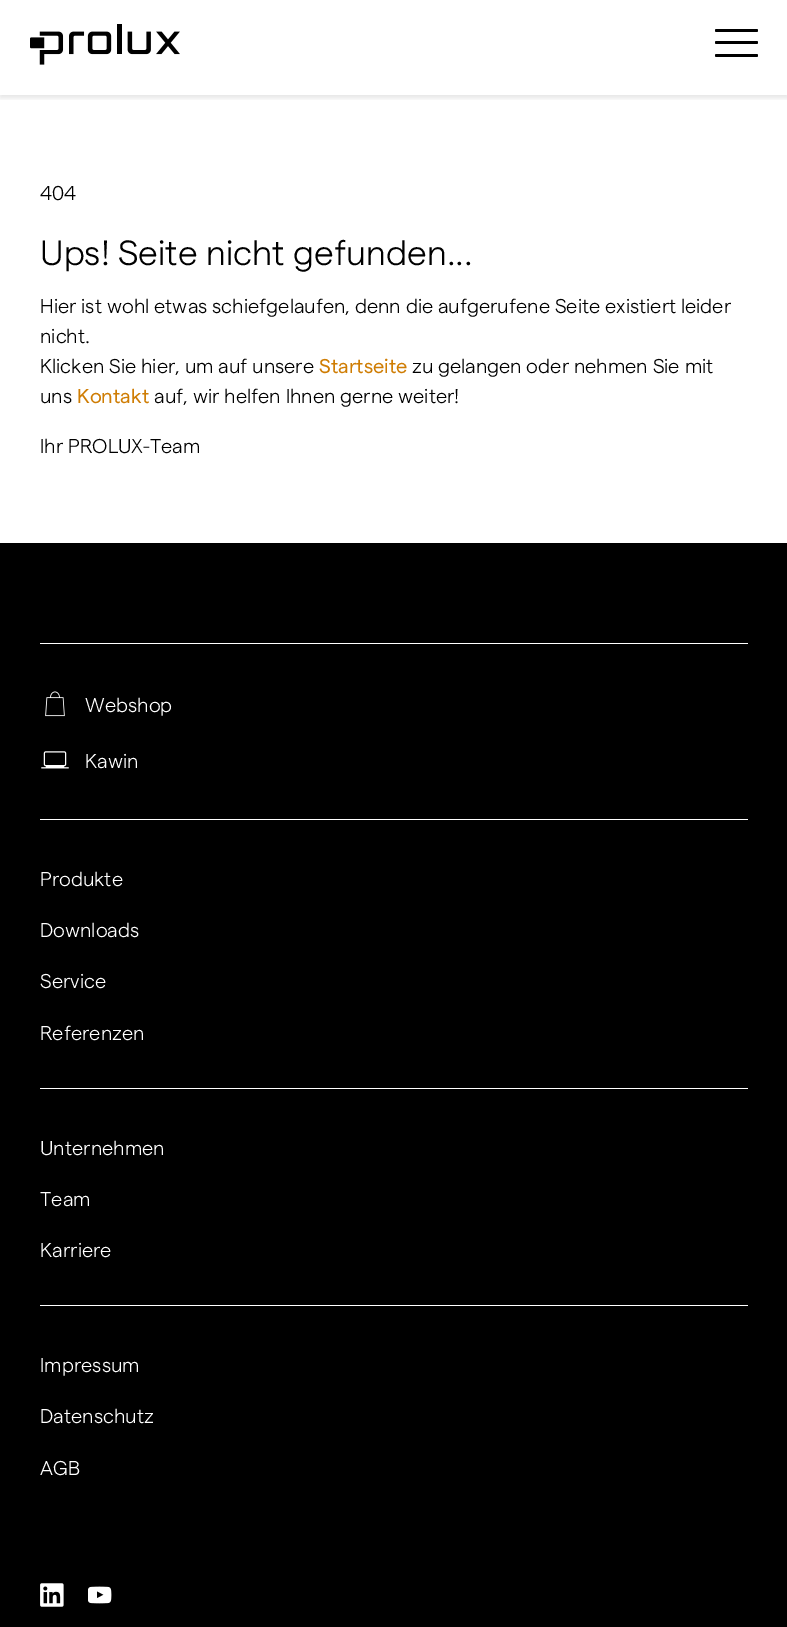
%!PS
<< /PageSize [787 1627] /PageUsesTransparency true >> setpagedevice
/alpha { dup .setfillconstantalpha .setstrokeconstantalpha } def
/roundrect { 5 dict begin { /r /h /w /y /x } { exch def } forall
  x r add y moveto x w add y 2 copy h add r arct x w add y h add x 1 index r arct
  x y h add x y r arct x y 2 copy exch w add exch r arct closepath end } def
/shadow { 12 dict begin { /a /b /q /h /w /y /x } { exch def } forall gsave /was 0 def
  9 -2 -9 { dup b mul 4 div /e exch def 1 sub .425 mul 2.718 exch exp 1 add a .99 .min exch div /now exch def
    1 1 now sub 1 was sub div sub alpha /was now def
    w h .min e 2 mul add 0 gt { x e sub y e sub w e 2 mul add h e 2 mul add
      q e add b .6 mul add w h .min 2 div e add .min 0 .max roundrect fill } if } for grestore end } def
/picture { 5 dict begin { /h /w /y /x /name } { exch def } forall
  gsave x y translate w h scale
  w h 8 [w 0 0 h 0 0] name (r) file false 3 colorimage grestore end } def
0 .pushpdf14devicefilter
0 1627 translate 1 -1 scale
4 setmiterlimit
1 setgray
0 0 787 1627 rectfill
gsave
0 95 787 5 rectclip
0 setgray
0 3 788 95 0 2.5 0.1 shadow
grestore
(img1.rgb) 30 24 150 41 picture
0 setgray
715 41 43 3 1.5 roundrect fill
715 29 43 3 1.5 roundrect fill
715 54 43 3 1.5 roundrect fill
/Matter-Light [20 0 0 -20 0 0] selectfont
40 200 moveto (404) show
/Matter-Light [35 0 0 -35 0 0] selectfont
40 265 moveto (Ups! Seite nicht gefunden...) show
/Matter-Light [20 0 0 -20 0 0] selectfont
40 313 moveto (Hier ist wohl etwas schiefgelaufen, denn die aufgerufene Seite existiert leider) show
40 343 moveto (nicht.) show
40 373 moveto (Klicken Sie hier, um auf unsere) show
/Matter-Regular [20 0 0 -20 0 0] selectfont
0.812 0.49 0.016 setrgbcolor
319 373 moveto (Startseite) show
/Matter-Light [20 0 0 -20 0 0] selectfont
0 setgray
412 373 moveto (zu gelangen oder nehmen Sie mit) show
40 403 moveto (uns) show
/Matter-Regular [20 0 0 -20 0 0] selectfont
0.812 0.49 0.016 setrgbcolor
77 403 moveto (Kontakt) show
/Matter-Light [20 0 0 -20 0 0] selectfont
0 setgray
154 403 moveto (auf, wir helfen Ihnen gerne weiter!) show
40 453 moveto (Ihr PROLUX-Team) show
0 543 787 1084 rectfill
1 setgray
40 643 708 1 rectfill
(img2.rgb) 45 691 20 26 picture
85 712 moveto (Webshop) show
(img3.rgb) 41 751 28 18 picture
85 768 moveto (Kawin) show
40 819 708 1 rectfill
40 886 moveto (Produkte) show
40 937 moveto (Downloads) show
40 988 moveto (Service) show
40 1040 moveto (Referenzen) show
40 1088 708 1 rectfill
40 1155 moveto (Unternehmen) show
40 1206 moveto (Team) show
40 1257 moveto (Karriere) show
40 1305 708 1 rectfill
40 1372 moveto (Impressum) show
40 1423 moveto (Datenschutz) show
40 1475 moveto (AGB) show
(img4.rgb) 40 1583 24 24 picture
(img5.rgb) 88 1586 24 18 picture
.poppdf14devicefilter showpage
